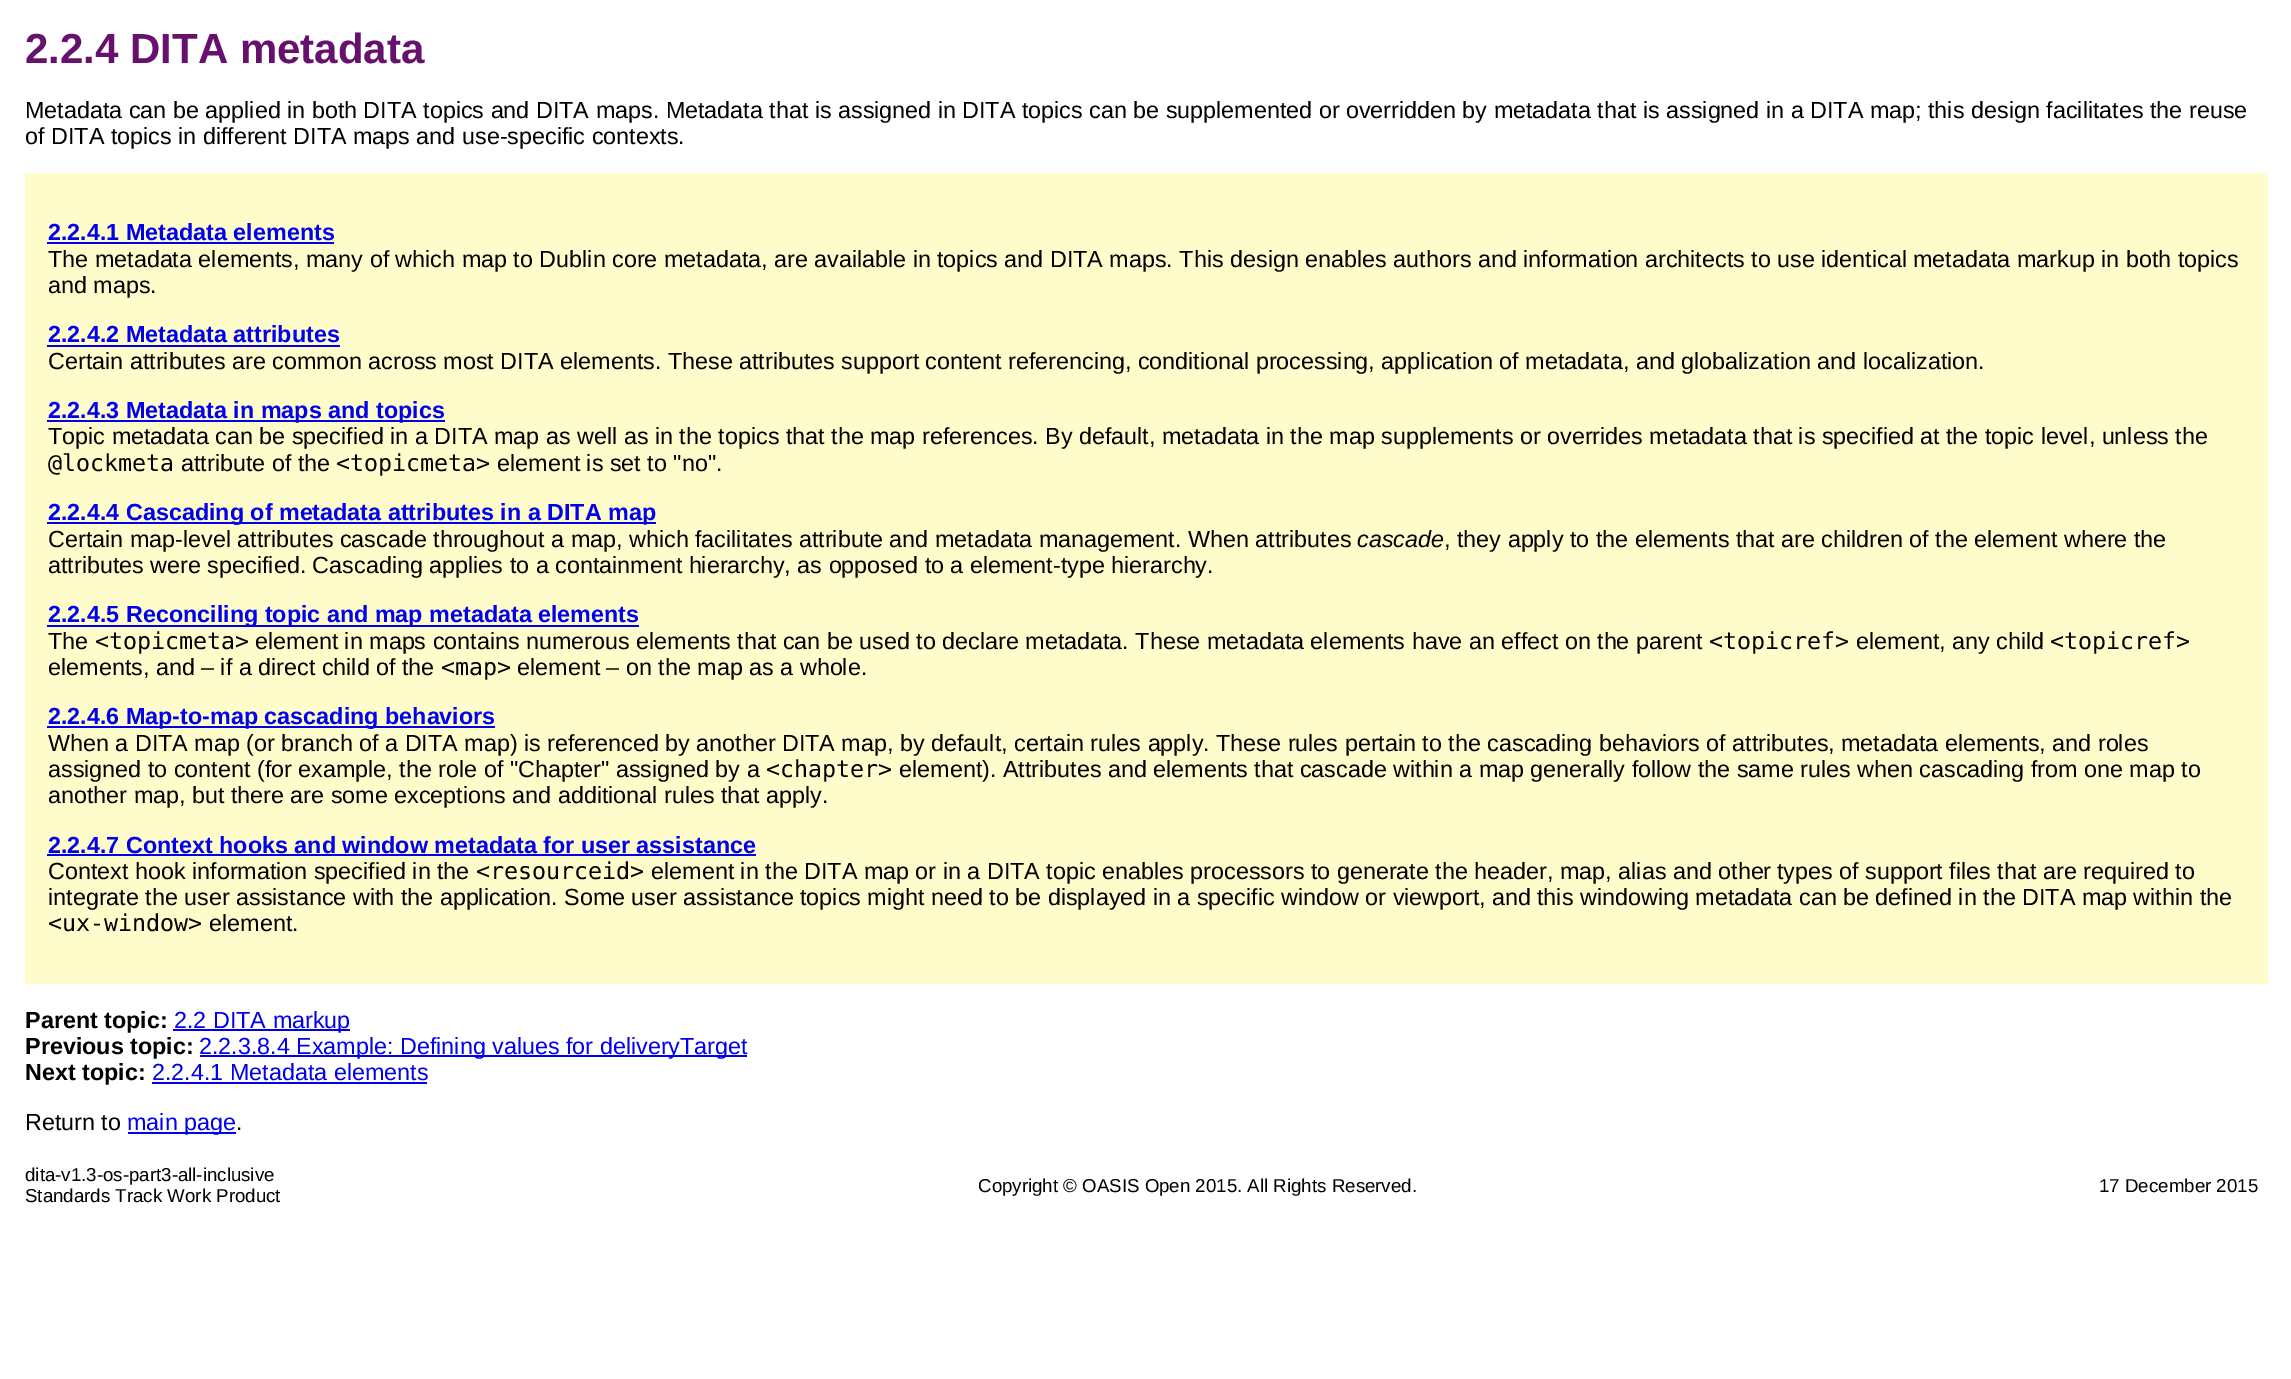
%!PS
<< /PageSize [2291 1379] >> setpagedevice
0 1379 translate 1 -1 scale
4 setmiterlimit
1 setgray
0 0 2291 1379 rectfill
/LiberationSans-Bold [42 0 0 -42 0 0] selectfont
0.4 0.067 0.427 setrgbcolor
25 63 moveto (2.2.4 DITA metadata) show
/LiberationSans-Regular [23.33 0 0 -23.33 0 0] selectfont
0 setgray
25 118 moveto (Metadata can be applied in both DITA topics and DITA maps. Metadata that is assigned in) show
962 118 moveto (DITA topics can be supplemented or overridden by metadata that is assigned in a DITA map; this) show
1971 118 moveto (design facilitates the reuse) show
25 144 moveto (of DITA topics in different DITA maps and use-specific contexts.) show
1 0.988 0.8 setrgbcolor
25 173 2243 811 rectfill
/LiberationSans-Bold [23.33 0 0 -23.33 0 0] selectfont
0 0 0.933 setrgbcolor
48 240 moveto (2.2.4.1 Metadata elements) show
47 242 287 2 rectfill
/LiberationSans-Regular [23.33 0 0 -23.33 0 0] selectfont
0 setgray
48 267 moveto (The metadata elements, many of which map to Dublin core metadata, are available in) show
937 267 moveto (topics and DITA maps. This design enables authors and information architects to use identical) show
1913 267 moveto (metadata markup in both topics) show
48 293 moveto (and maps.) show
/LiberationSans-Bold [23.33 0 0 -23.33 0 0] selectfont
0 0 0.933 setrgbcolor
48 342 moveto (2.2.4.2 Metadata attributes) show
47 345 293 2 rectfill
/LiberationSans-Regular [23.33 0 0 -23.33 0 0] selectfont
0 setgray
48 369 moveto (Certain attributes are common across most DITA elements. These attributes support) show
925 369 moveto (content referencing, conditional processing, application of metadata, and globalization and) show
1863 369 moveto (localization.) show
0 0 0.933 setrgbcolor
47 420 398 2 rectfill
/LiberationSans-Bold [23.33 0 0 -23.33 0 0] selectfont
48 418 moveto (2.2.4.3 Metadata in maps and topics) show
/LiberationSans-Regular [23.33 0 0 -23.33 0 0] selectfont
0 setgray
48 444 moveto (Topic metadata can be specified in a DITA map as well as in the topics that the map) show
922 444 moveto (references. By default, metadata in the map supplements or overrides metadata that is specified) show
1920 444 moveto (at the topic level, unless the) show
/DejaVuSansMono-Regular [23.33 0 0 -23.33 0 0] selectfont
48 471 moveto (@lockmeta) show
/LiberationSans-Regular [23.33 0 0 -23.33 0 0] selectfont
181 471 moveto (attribute of the) show
/DejaVuSansMono-Regular [23.33 0 0 -23.33 0 0] selectfont
336 471 moveto (<topicmeta>) show
/LiberationSans-Regular [23.33 0 0 -23.33 0 0] selectfont
497 471 moveto (element is set to "no".) show
0 0 0.933 setrgbcolor
47 522 609 2 rectfill
/LiberationSans-Bold [23.33 0 0 -23.33 0 0] selectfont
48 520 moveto (2.2.4.4 Cascading of metadata attributes in a DITA map) show
/LiberationSans-Regular [23.33 0 0 -23.33 0 0] selectfont
0 setgray
48 547 moveto (Certain map-level attributes cascade throughout a map, which facilitates attribute and) show
935 547 moveto (metadata management. When attributes) show
/LiberationSans-Italic [23.33 0 0 -23.33 0 0] selectfont
1357 547 moveto (cascade) show
/LiberationSans-Regular [23.33 0 0 -23.33 0 0] selectfont
1444 547 moveto (, they apply to the elements that are children of the element where the) show
48 573 moveto (attributes were specified. Cascading applies to a containment hierarchy, as opposed to a element-type hierarchy.) show
0 0 0.933 setrgbcolor
47 625 592 2 rectfill
/LiberationSans-Bold [23.33 0 0 -23.33 0 0] selectfont
48 622 moveto (2.2.4.5 Reconciling topic and map metadata elements) show
/LiberationSans-Regular [23.33 0 0 -23.33 0 0] selectfont
0 setgray
48 649 moveto (The) show
/DejaVuSansMono-Regular [23.33 0 0 -23.33 0 0] selectfont
95 649 moveto (<topicmeta>) show
/LiberationSans-Regular [23.33 0 0 -23.33 0 0] selectfont
255 649 moveto (element in maps contains numerous elements that can be used to declare metadata. These metadata elements have an effect on the parent) show
/DejaVuSansMono-Regular [23.33 0 0 -23.33 0 0] selectfont
1709 649 moveto (<topicref>) show
/LiberationSans-Regular [23.33 0 0 -23.33 0 0] selectfont
1856 649 moveto (element, any child) show
/DejaVuSansMono-Regular [23.33 0 0 -23.33 0 0] selectfont
2050 649 moveto (<topicref>) show
/LiberationSans-Regular [23.33 0 0 -23.33 0 0] selectfont
48 675 moveto (elements, and – if a direct child of the) show
/DejaVuSansMono-Regular [23.33 0 0 -23.33 0 0] selectfont
441 675 moveto (<map>) show
/LiberationSans-Regular [23.33 0 0 -23.33 0 0] selectfont
517 675 moveto (element – on the map as a whole.) show
0 0 0.933 setrgbcolor
47 726 448 2 rectfill
/LiberationSans-Bold [23.33 0 0 -23.33 0 0] selectfont
48 724 moveto (2.2.4.6 Map-to-map cascading behaviors) show
/LiberationSans-Regular [23.33 0 0 -23.33 0 0] selectfont
0 setgray
48 751 moveto (When a DITA map \(or branch of a DITA map\) is referenced by another DITA map, by) show
931 751 moveto (default, certain rules apply. These rules pertain to the cascading behaviors of attributes,) show
1841 751 moveto (metadata elements, and roles) show
48 777 moveto (assigned to content \(for example, the role of "Chapter" assigned by a) show
/DejaVuSansMono-Regular [23.33 0 0 -23.33 0 0] selectfont
766 777 moveto (<chapter>) show
/LiberationSans-Regular [23.33 0 0 -23.33 0 0] selectfont
899 777 moveto (element\). Attributes and elements that cascade within a map generally follow the same rules when cascading from one map to) show
48 803 moveto (another map, but there are some exceptions and additional rules that apply.) show
/LiberationSans-Bold [23.33 0 0 -23.33 0 0] selectfont
0 0 0.933 setrgbcolor
48 853 moveto (2.2.4.7 Context hooks and window metadata for user assistance) show
47 854 709 2 rectfill
/LiberationSans-Regular [23.33 0 0 -23.33 0 0] selectfont
0 setgray
48 879 moveto (Context hook information specified in the) show
/DejaVuSansMono-Regular [23.33 0 0 -23.33 0 0] selectfont
476 879 moveto (<resourceid>) show
/LiberationSans-Regular [23.33 0 0 -23.33 0 0] selectfont
651 879 moveto (element in the DITA map or in a DITA topic enables processors to generate the header, map, alias and other) show
1777 879 moveto (types of support files that are required to) show
48 905 moveto (integrate the user assistance with the application. Some user assistance topics might need to be displayed in a specific window or viewport, and) show
1537 905 moveto (this windowing metadata can be defined in the DITA map within the) show
/DejaVuSansMono-Regular [23.33 0 0 -23.33 0 0] selectfont
48 931 moveto (<ux-window>) show
/LiberationSans-Regular [23.33 0 0 -23.33 0 0] selectfont
209 931 moveto (element.) show
/LiberationSans-Bold [23.33 0 0 -23.33 0 0] selectfont
25 1028 moveto (Parent topic:) show
0 0 0.933 setrgbcolor
173 1029 177 2 rectfill
/LiberationSans-Regular [23.33 0 0 -23.33 0 0] selectfont
174 1028 moveto (2.2 DITA markup) show
/LiberationSans-Bold [23.33 0 0 -23.33 0 0] selectfont
0 setgray
25 1054 moveto (Previous topic:) show
0 0 0.933 setrgbcolor
200 1055 547 2 rectfill
/LiberationSans-Regular [23.33 0 0 -23.33 0 0] selectfont
199 1054 moveto (2.2.3.8.4 Example: Defining values for deliveryTarget) show
/LiberationSans-Bold [23.33 0 0 -23.33 0 0] selectfont
0 setgray
25 1080 moveto (Next topic:) show
/LiberationSans-Regular [23.33 0 0 -23.33 0 0] selectfont
0 0 0.933 setrgbcolor
152 1080 moveto (2.2.4.1 Metadata elements) show
152 1082 275 2 rectfill
0 setgray
25 1130 moveto (Return to) show
0 0 0.933 setrgbcolor
128 1132 108 2 rectfill
127 1130 moveto (main page) show
0 setgray
236 1130 moveto (.) show
/LiberationSans-Regular [18.7 0 0 -18.7 0 0] selectfont
25 1181 moveto (dita-v1.3-os-part3-all-inclusive) show
25 1202 moveto (Standards Track Work Product) show
978 1192 moveto (Copyright © OASIS Open 2015. All Rights Reserved.) show
2099 1192 moveto (17 December 2015) show
showpage
